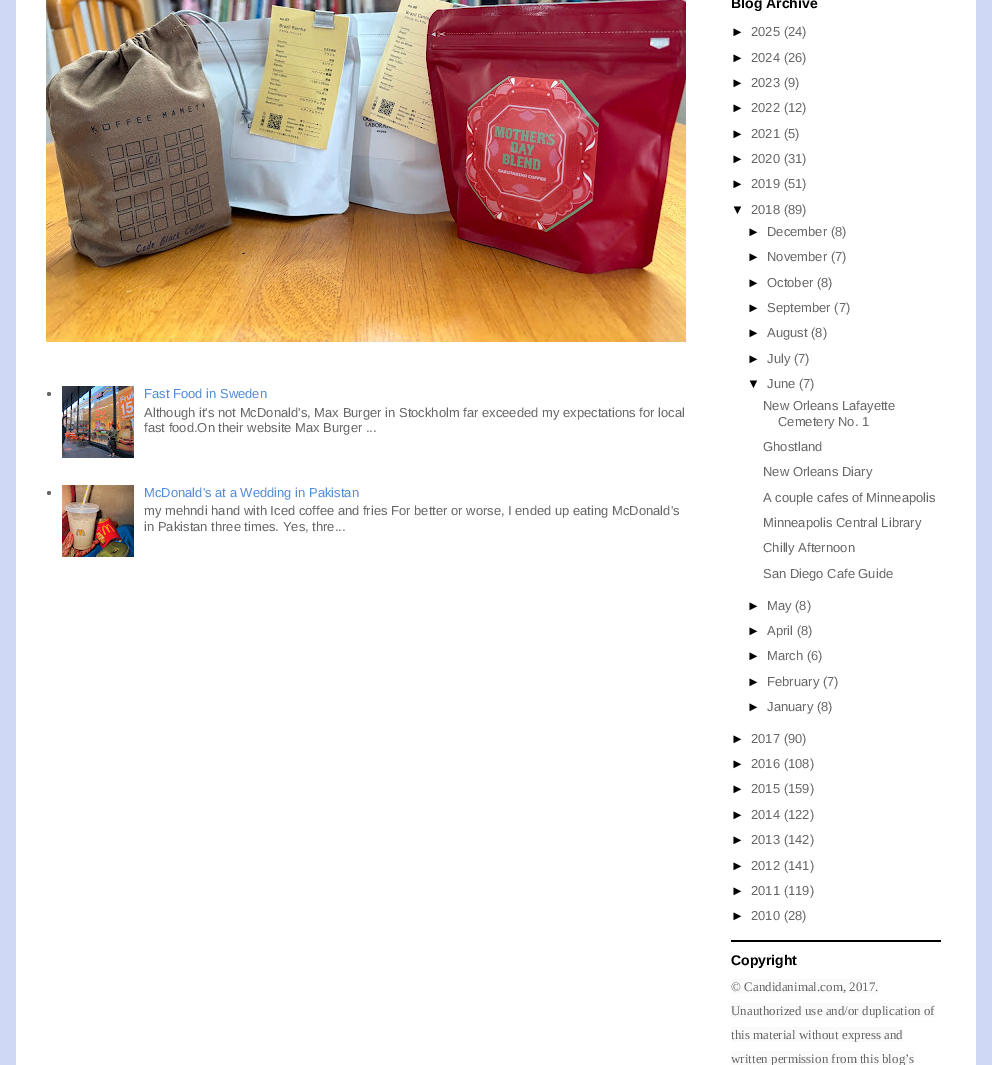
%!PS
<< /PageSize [992 1065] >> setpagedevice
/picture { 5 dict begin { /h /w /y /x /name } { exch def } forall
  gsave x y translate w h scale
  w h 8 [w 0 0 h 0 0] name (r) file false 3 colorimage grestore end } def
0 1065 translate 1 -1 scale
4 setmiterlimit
0.812 0.851 0.965 setrgbcolor
0 0 992 1065 rectfill
1 setgray
16 0 960 1065 rectfill
(img1.rgb) 46 0 640 342 picture
0.4 setgray
newpath 49 394 2 0 360 arc closepath fill
(img2.rgb) 62 386 72 72 picture
/LiberationSans-Regular [13 0 0 -13 0 0] selectfont
0.325 0.549 0.839 setrgbcolor
144 398 moveto (Fast Food in Sweden) show
0.4 setgray
144 417 moveto (Although it's not McDonald's, Max Burger in Stockholm far exceeded my expectations for local) show
144 432 moveto (fast food.On their website Max Burger ...) show
newpath 49 493 2 0 360 arc closepath fill
(img3.rgb) 62 485 72 72 picture
0.325 0.549 0.839 setrgbcolor
144 497 moveto (McDonald's at a Wedding in Pakistan) show
0.4 setgray
144 515 moveto (my mehndi hand with Iced coffee and fries For better or worse, I ended up eating McDonald's) show
144 531 moveto (in Pakistan three times. Yes, thre...) show
0 setgray
731 940 210 2 rectfill
/LiberationSans-Bold [14 0 0 -14 0 0] selectfont
731 8 moveto (Blog Archive) show
/LiberationSans-Regular [13 0 0 -13 0 0] selectfont
731 36 moveto (►) show
0.4 setgray
751 36 moveto (2025 \(24\)) show
0 setgray
731 62 moveto (►) show
0.4 setgray
751 62 moveto (2024 \(26\)) show
0 setgray
731 87 moveto (►) show
0.4 setgray
751 87 moveto (2023 \(9\)) show
0 setgray
731 112 moveto (►) show
0.4 setgray
751 112 moveto (2022 \(12\)) show
0 setgray
731 138 moveto (►) show
0.4 setgray
751 138 moveto (2021 \(5\)) show
0 setgray
731 163 moveto (►) show
0.4 setgray
751 163 moveto (2020 \(31\)) show
0 setgray
731 188 moveto (►) show
0.4 setgray
751 188 moveto (2019 \(51\)) show
0 setgray
731 214 moveto (▼) show
0.4 setgray
751 214 moveto (2018 \(89\)) show
0 setgray
747 236 moveto (►) show
0.4 setgray
767 236 moveto (December \(8\)) show
0 setgray
747 261 moveto (►) show
0.4 setgray
767 261 moveto (November \(7\)) show
0 setgray
747 287 moveto (►) show
0.4 setgray
767 287 moveto (October \(8\)) show
0 setgray
747 312 moveto (►) show
0.4 setgray
767 312 moveto (September \(7\)) show
0 setgray
747 337 moveto (►) show
0.4 setgray
767 337 moveto (August \(8\)) show
0 setgray
747 363 moveto (►) show
0.4 setgray
767 363 moveto (July \(7\)) show
0 setgray
747 388 moveto (▼) show
0.4 setgray
767 388 moveto (June \(7\)) show
763 410 moveto (New Orleans Lafayette) show
778 426 moveto (Cemetery No. 1) show
763 451 moveto (Ghostland) show
763 476 moveto (New Orleans Diary) show
763 502 moveto (A couple cafes of Minneapolis) show
763 527 moveto (Minneapolis Central Library) show
763 552 moveto (Chilly Afternoon) show
763 578 moveto (San Diego Cafe Guide) show
0 setgray
747 610 moveto (►) show
0.4 setgray
767 610 moveto (May \(8\)) show
0 setgray
747 635 moveto (►) show
0.4 setgray
767 635 moveto (April \(8\)) show
0 setgray
747 660 moveto (►) show
0.4 setgray
767 660 moveto (March \(6\)) show
0 setgray
747 686 moveto (►) show
0.4 setgray
767 686 moveto (February \(7\)) show
0 setgray
747 711 moveto (►) show
0.4 setgray
767 711 moveto (January \(8\)) show
0 setgray
731 743 moveto (►) show
0.4 setgray
751 743 moveto (2017 \(90\)) show
0 setgray
731 768 moveto (►) show
0.4 setgray
751 768 moveto (2016 \(108\)) show
0 setgray
731 793 moveto (►) show
0.4 setgray
751 793 moveto (2015 \(159\)) show
0 setgray
731 819 moveto (►) show
0.4 setgray
751 819 moveto (2014 \(122\)) show
0 setgray
731 844 moveto (►) show
0.4 setgray
751 844 moveto (2013 \(142\)) show
0 setgray
731 870 moveto (►) show
0.4 setgray
751 870 moveto (2012 \(141\)) show
0 setgray
731 895 moveto (►) show
0.4 setgray
751 895 moveto (2011 \(119\)) show
0 setgray
731 920 moveto (►) show
0.4 setgray
751 920 moveto (2010 \(28\)) show
/LiberationSans-Bold [14 0 0 -14 0 0] selectfont
0 setgray
731 965 moveto (Copyright) show
0.98 setgray
731 979 147 15 rectfill
/LiberationSerif-Regular [13 0 0 -13 0 0] selectfont
0.4 setgray
731 991 moveto (© Candidanimal.com, 2017.) show
0.98 setgray
731 1003 204 15 rectfill
0.4 setgray
731 1015 moveto (Unauthorized use and/or duplication of) show
0.98 setgray
731 1027 172 15 rectfill
0.4 setgray
731 1039 moveto (this material without express and) show
0.98 setgray
731 1051 183 14 rectfill
0.4 setgray
731 1063 moveto (written permission from this blog’s) show
showpage
